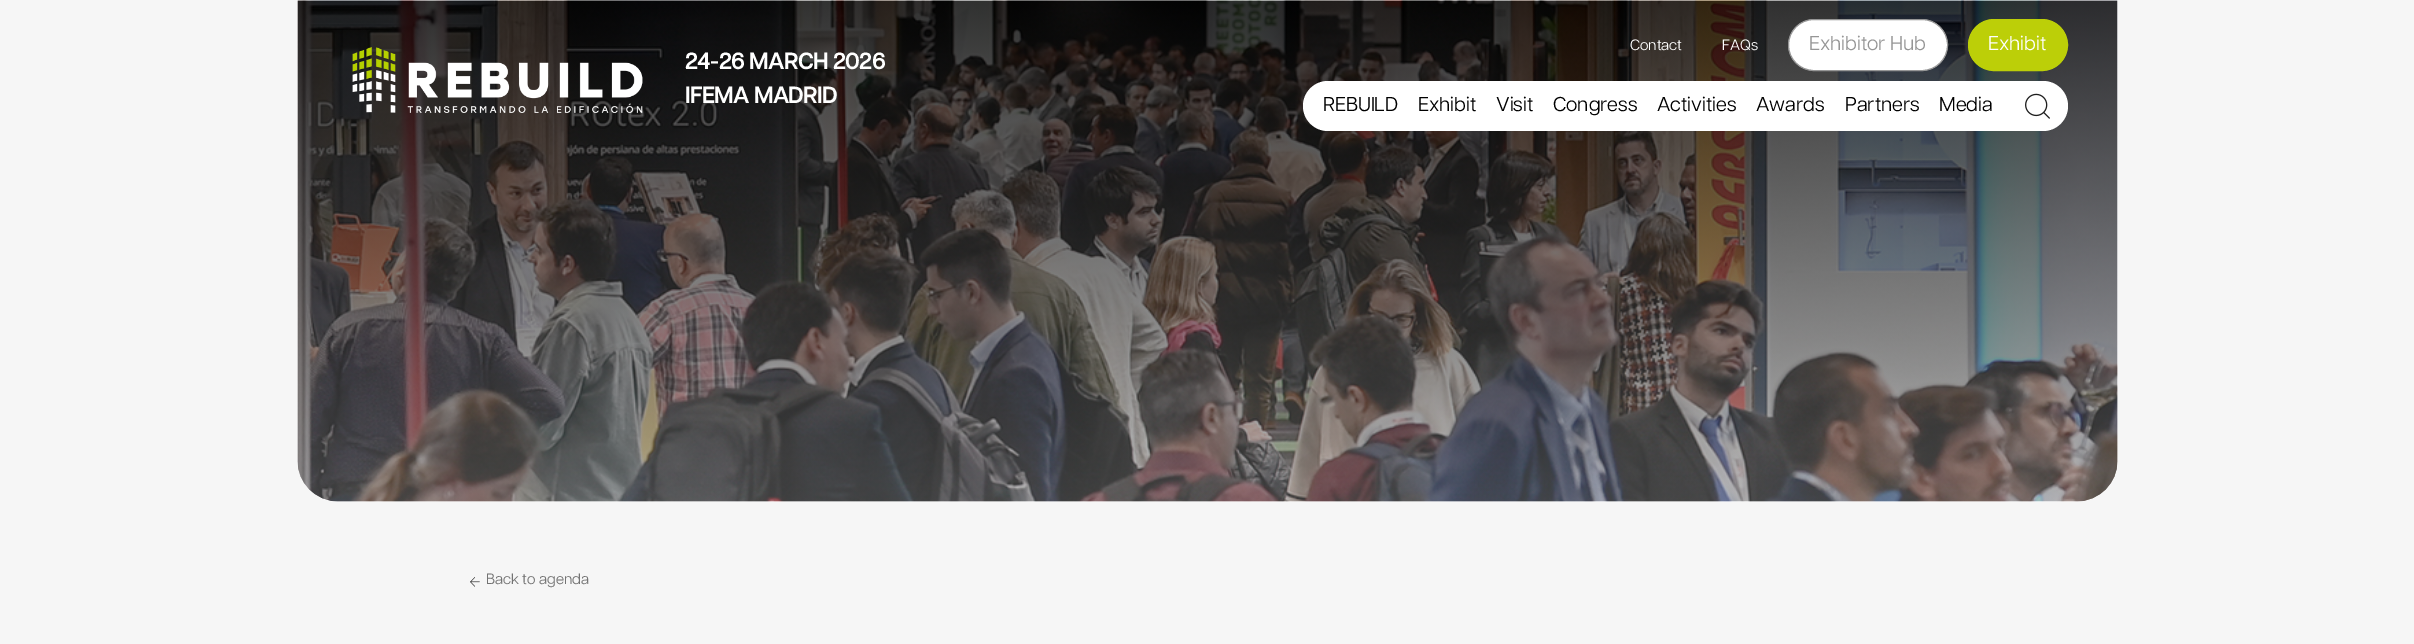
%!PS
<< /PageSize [2414 644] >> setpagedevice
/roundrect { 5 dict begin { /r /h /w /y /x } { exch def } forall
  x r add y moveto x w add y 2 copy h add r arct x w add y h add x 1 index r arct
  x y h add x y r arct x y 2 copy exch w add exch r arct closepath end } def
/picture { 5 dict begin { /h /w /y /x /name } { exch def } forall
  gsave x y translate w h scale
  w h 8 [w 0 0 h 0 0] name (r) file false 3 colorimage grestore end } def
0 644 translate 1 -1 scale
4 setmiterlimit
0.965 setgray
0 0 2414 644 rectfill
(img1.rgb) 297 0 1821 502 picture
(img2.rgb) 352 47 291 66 picture
/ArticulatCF-Bold [22.5 0 0 -22.5 0 0] selectfont
1 setgray
685 69 moveto (24-26 MARCH 2026) show
685 103 moveto (IFEMA MADRID) show
/ArticulatCF-Regular [15 0 0 -15 0 0] selectfont
1630 50 moveto (Contact) show
1722 50 moveto (FAQs) show
1788.5 19.5 159 51 25.5 roundrect gsave fill grestore
0.588 setgray
stroke
/ArticulatCF-Regular [20 0 0 -20 0 0] selectfont
1809 50 moveto (Exhibitor Hub) show
0.737 0.812 0.031 setrgbcolor
1968.5 19.5 99 51 25.5 roundrect gsave fill grestore
stroke
1 setgray
1988 50 moveto (Exhibit) show
1303 81 765 50 25 roundrect fill
0 setgray
1323 111 moveto (REBUILD) show
1418 111 moveto (Exhibit) show
1496 111 moveto (Visit) show
1553 111 moveto (Congress) show
1657 111 moveto (Activities) show
1756 111 moveto (Awards) show
1845 111 moveto (Partners) show
1939 111 moveto (Media) show
(img3.rgb) 2025 93 25 26 picture
(img4.rgb) 470 577 10 10 picture
/ArticulatCF-Regular [15 0 0 -15 0 0] selectfont
0.451 setgray
486 584 moveto (Back to agenda) show
showpage
